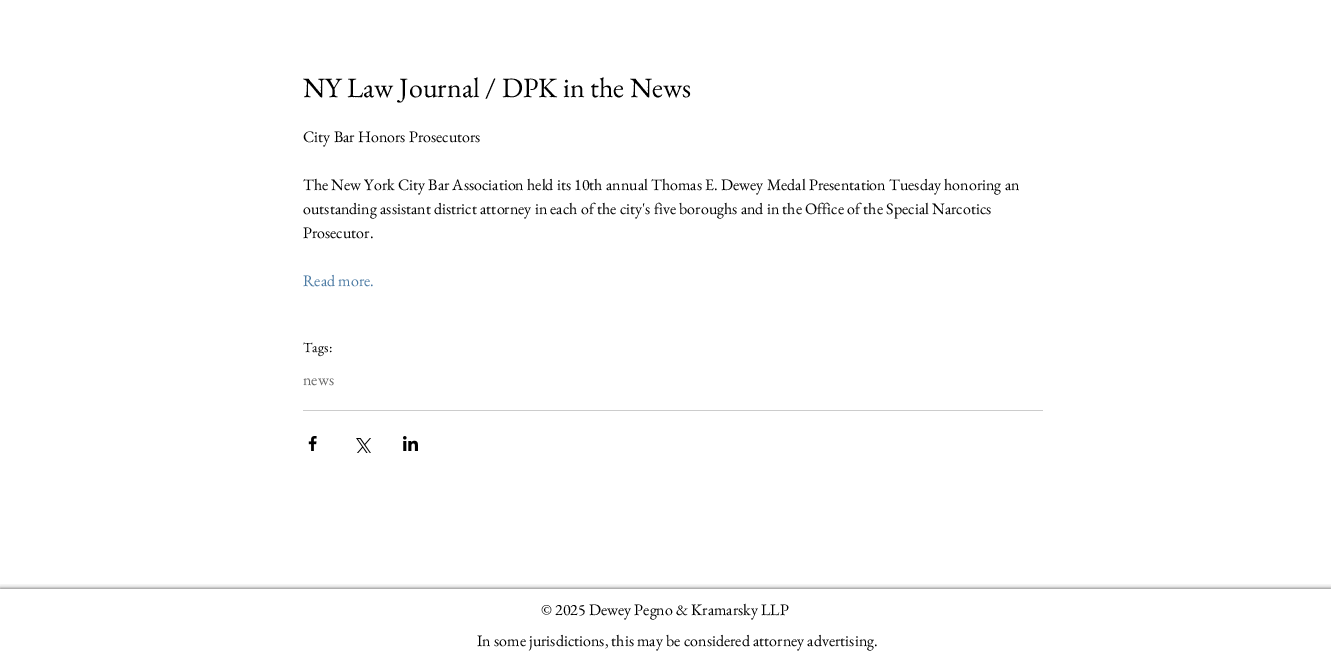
%!PS
<< /PageSize [1331 669] /PageUsesTransparency true >> setpagedevice
/alpha { dup .setfillconstantalpha .setstrokeconstantalpha } def
/roundrect { 5 dict begin { /r /h /w /y /x } { exch def } forall
  x r add y moveto x w add y 2 copy h add r arct x w add y h add x 1 index r arct
  x y h add x y r arct x y 2 copy exch w add exch r arct closepath end } def
/shadow { 12 dict begin { /a /b /q /h /w /y /x } { exch def } forall gsave /was 0 def
  9 -2 -9 { dup b mul 4 div /e exch def 1 sub .425 mul 2.718 exch exp 1 add a .99 .min exch div /now exch def
    1 1 now sub 1 was sub div sub alpha /was now def
    w h .min e 2 mul add 0 gt { x e sub y e sub w e 2 mul add h e 2 mul add
      q e add b .6 mul add w h .min 2 div e add .min 0 .max roundrect fill } if } for grestore end } def
/picture { 5 dict begin { /h /w /y /x /name } { exch def } forall
  gsave x y translate w h scale
  w h 8 [w 0 0 h 0 0] name (r) file false 3 colorimage grestore end } def
0 .pushpdf14devicefilter
0 669 translate 1 -1 scale
4 setmiterlimit
1 setgray
0 0 1331 669 rectfill
/EBGaramond-Regular [28 0 0 -28 0 0] selectfont
0 setgray
303 97 moveto (NY Law Journal / DPK in the News) show
/EBGaramond-Regular [16 0 0 -16 0 0] selectfont
303 142 moveto (City Bar Honors Prosecutors) show
303 190 moveto (The New York City Bar Association held its 10th annual Thomas E. Dewey Medal Presentation Tuesday honoring an) show
303 214 moveto (outstanding assistant district attorney in each of the city's five boroughs and in the Office of the Special Narcotics) show
303 238 moveto (Prosecutor.) show
0.294 0.478 0.639 setrgbcolor
303 286 moveto (Read more.) show
/EBGaramond-Regular [14 0 0 -14 0 0] selectfont
0 setgray
303 352 moveto (Tags:) show
/EBGaramond-Regular [16 0 0 -16 0 0] selectfont
0.396 setgray
303 385 moveto (news) show
0.8 setgray
303 410 740 1 rectfill
(img1.rgb) 308 436 9 15 picture
(img2.rgb) 356 438 15 15 picture
(img3.rgb) 403 436 15 15 picture
gsave
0 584 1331 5 rectclip
0 setgray
0 589 1331 80 0 2.5 0.7 shadow
grestore
0 setgray
541 615 moveto (© 2025 Dewey Pegno & Kramarsky LLP) show
477 646 moveto (In some jurisdictions, this may be considered attorney advertising.) show
.poppdf14devicefilter showpage
